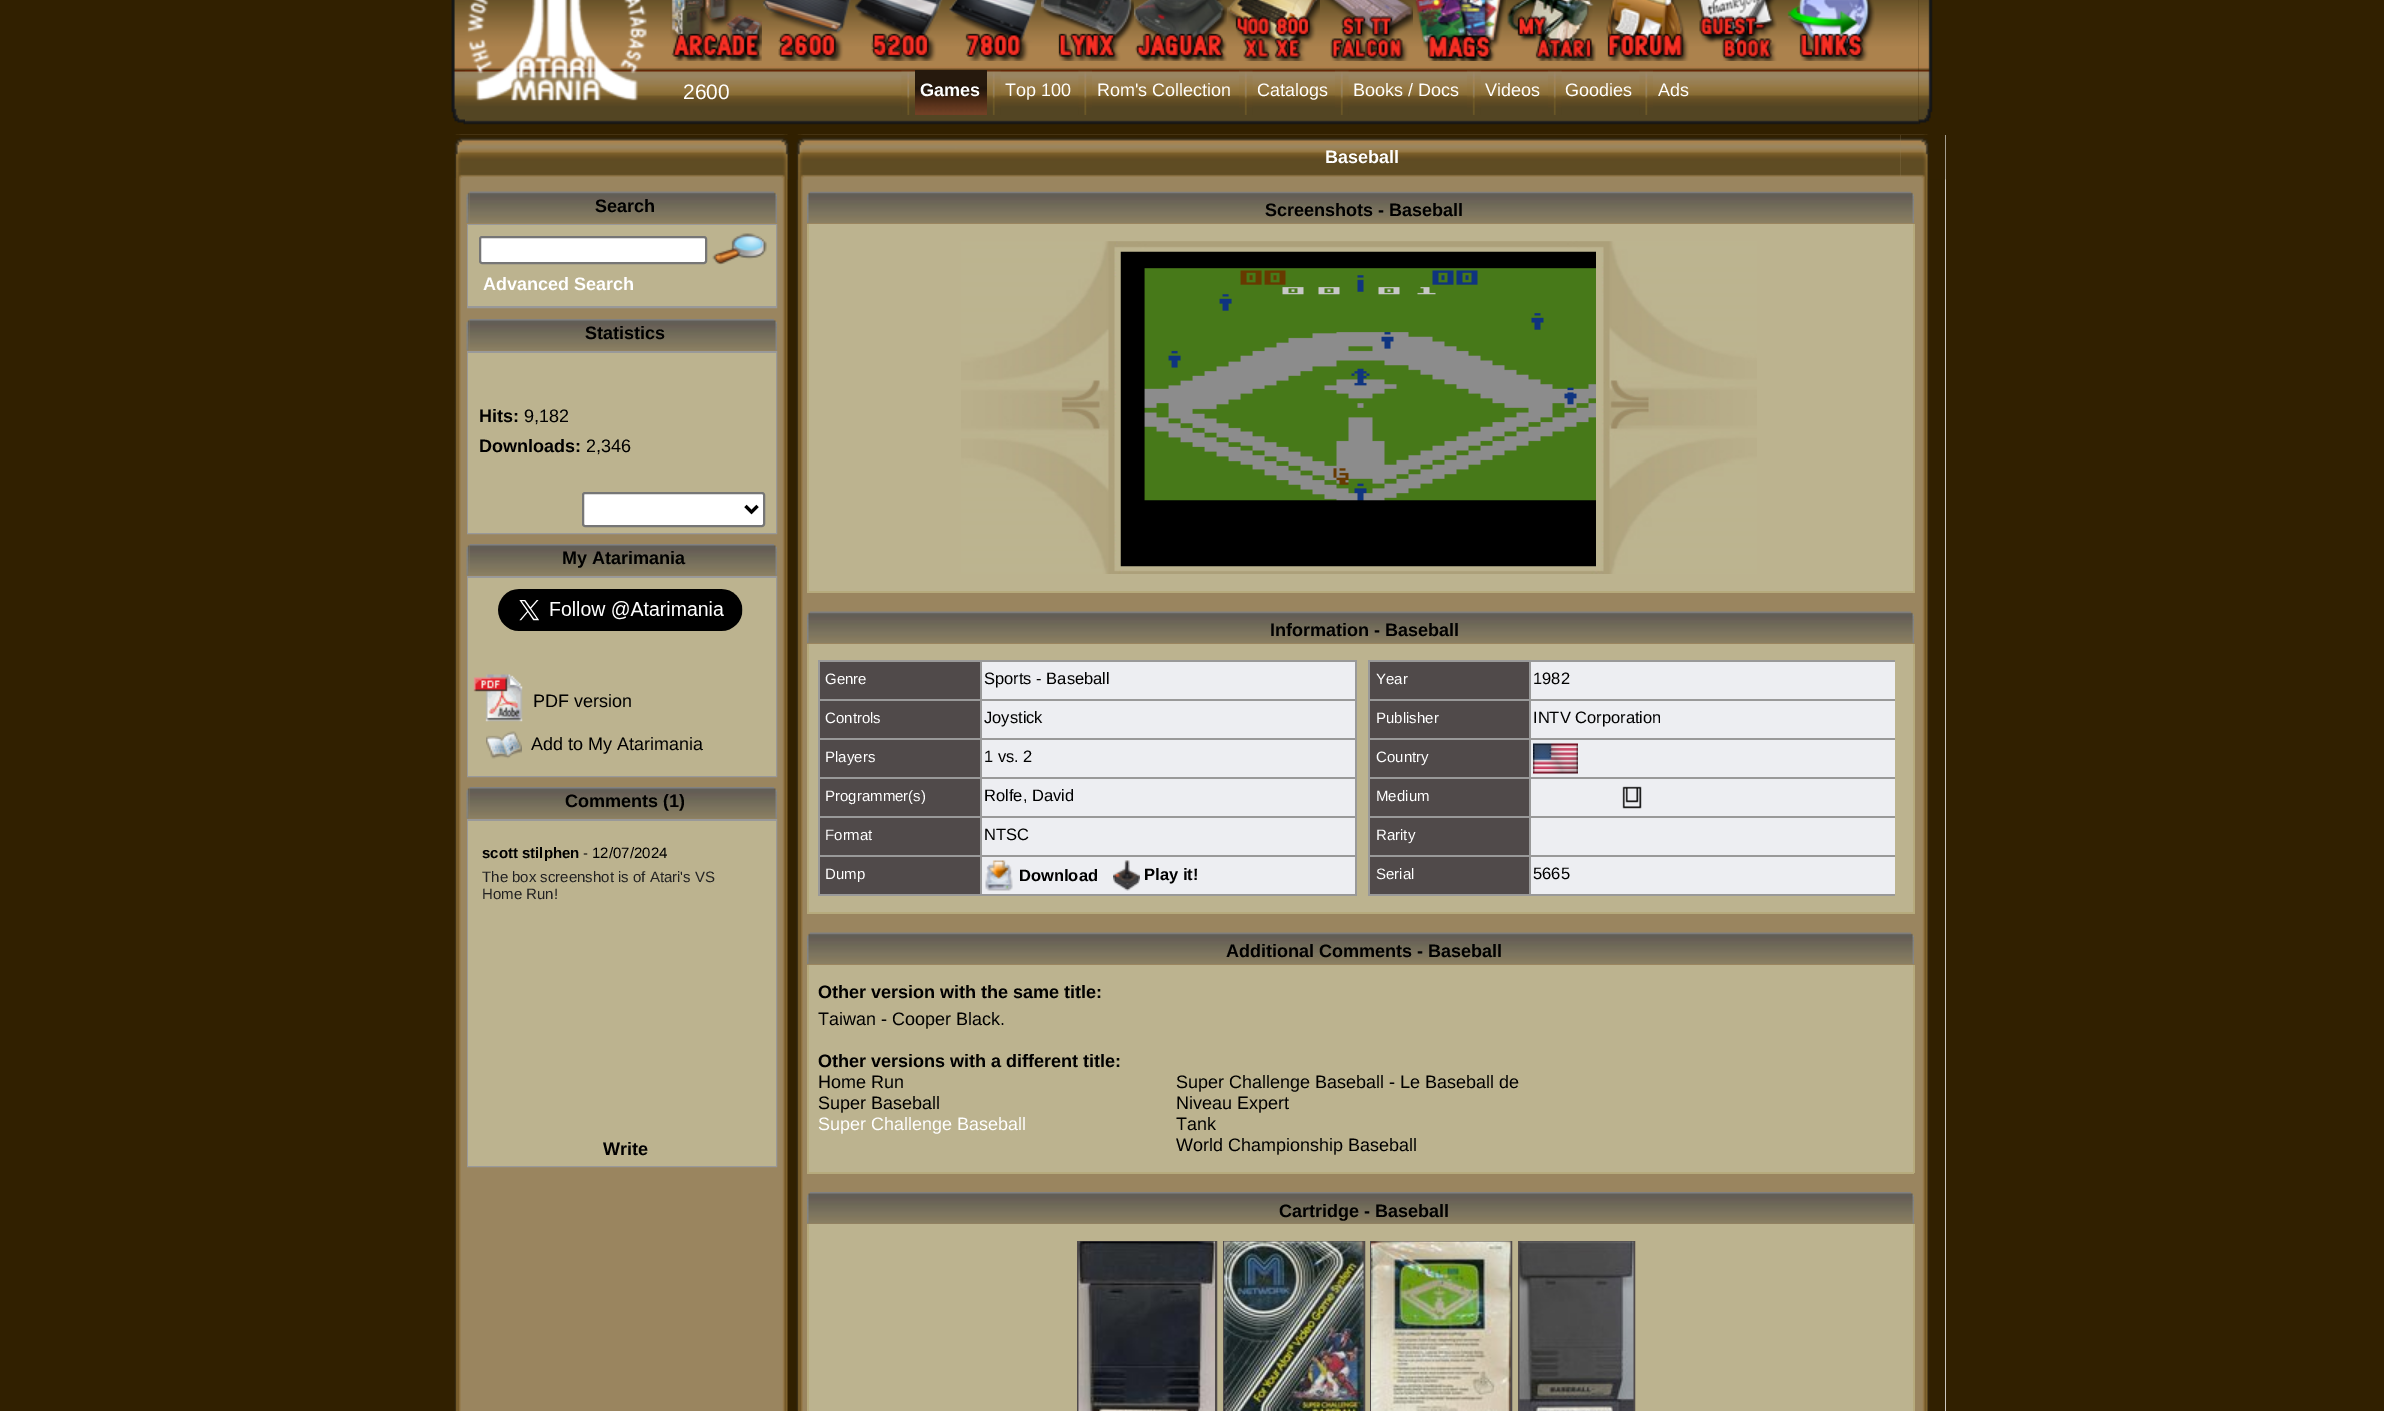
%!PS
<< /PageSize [2384 1411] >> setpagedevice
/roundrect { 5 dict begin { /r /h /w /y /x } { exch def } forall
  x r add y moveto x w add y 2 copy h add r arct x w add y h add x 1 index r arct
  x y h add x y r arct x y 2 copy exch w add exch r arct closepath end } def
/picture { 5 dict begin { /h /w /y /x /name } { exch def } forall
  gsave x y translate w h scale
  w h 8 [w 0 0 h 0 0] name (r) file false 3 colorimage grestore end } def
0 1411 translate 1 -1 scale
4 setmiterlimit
0.192 0.125 0 setrgbcolor
0 0 2384 1411 rectfill
(img1.rgb) 451 0 14 125 picture
(img21.rgb) 1918 0 15 125 picture
(img2.rgb) 465 0 1454 125 picture
(img3.rgb) 467 0 180 101 picture
(img4.rgb) 670 0 92 61 picture
(img5.rgb) 762 0 89 61 picture
(img6.rgb) 855 0 88 61 picture
(img7.rgb) 949 0 88 61 picture
(img8.rgb) 1041 0 93 61 picture
(img9.rgb) 1134 0 93 61 picture
(img10.rgb) 1227 0 93 61 picture
(img11.rgb) 1324 0 89 61 picture
(img12.rgb) 1415 0 91 61 picture
(img13.rgb) 1507 0 89 61 picture
(img14.rgb) 1606 0 83 61 picture
(img15.rgb) 1697 0 80 61 picture
(img16.rgb) 1787 0 88 61 picture
/LiberationSans-Regular [21 0 0 -21 0 0] selectfont
1 setgray
683 99 moveto (2600) show
(img17.rgb) 901 70 14 45 picture
(img18.rgb) 915 70 72 45 picture
/LiberationSans-Bold [18 0 0 -18 0 0] selectfont
920 96 moveto (Games) show
(img19.rgb) 987 70 14 45 picture
/LiberationSans-Regular [18 0 0 -18 0 0] selectfont
1005 96 moveto (Top 100) show
(img17.rgb) 1078 70 14 45 picture
1097 96 moveto (Rom's Collection) show
(img20.rgb) 1239 70 14 45 picture
1257 96 moveto (Catalogs) show
(img20.rgb) 1335 70 14 45 picture
1353 96 moveto (Books / Docs) show
(img20.rgb) 1467 70 14 45 picture
1485 96 moveto (Videos) show
(img19.rgb) 1548 70 14 45 picture
1565 96 moveto (Goodies) show
(img17.rgb) 1639 70 14 45 picture
1658 96 moveto (Ads) show
1945 135 1 1276 rectfill
(img22.rgb) 438 134 1508 1277 picture
(img23.rgb) 454 134 29 44 picture
(img24.rgb) 483 134 1418 46 picture
/LiberationSans-Bold [18 0 0 -18 0 0] selectfont
1325 163 moveto (Baseball) show
(img25.rgb) 1900 134 46 46 picture
(img26.rgb) 466 192 4 31 picture
(img27.rgb) 469 191 305 32 picture
0 setgray
595 212 moveto (Search) show
(img28.rgb) 774 192 3 31 picture
0.6 setgray
2 setlinewidth
468 225 308 82 rectstroke
0.737 0.702 0.561 setrgbcolor
468 225 308 81 rectfill
1 setgray
480 237 226 26 2 roundrect gsave fill grestore
0.463 setgray
stroke
(img29.rgb) 712 233 55 32 picture
1 setgray
483 290 moveto (Advanced Search) show
(img30.rgb) 466 320 4 31 picture
(img31.rgb) 469 319 305 32 picture
0 setgray
585 339 moveto (Statistics) show
(img32.rgb) 774 320 3 31 picture
0.6 setgray
468 352 308 181 rectstroke
0.737 0.702 0.561 setrgbcolor
468 353 308 180 rectfill
0 setgray
479 422 moveto (Hits:) show
/LiberationSans-Regular [18 0 0 -18 0 0] selectfont
524 422 moveto (9,182) show
/LiberationSans-Bold [18 0 0 -18 0 0] selectfont
479 452 moveto (Downloads:) show
/LiberationSans-Regular [18 0 0 -18 0 0] selectfont
586 452 moveto (2,346) show
1 setgray
583 493 181 33 2 roundrect gsave fill grestore
0.463 setgray
stroke
0 setgray
3 setlinewidth
newpath 745.5 506 moveto 751.5 512 lineto 757.5 506 lineto stroke
(img30.rgb) 466 545 4 31 picture
(img31.rgb) 469 544 305 32 picture
/LiberationSans-Bold [18 0 0 -18 0 0] selectfont
562 564 moveto (My Atarimania) show
(img32.rgb) 774 545 3 31 picture
0.6 setgray
2 setlinewidth
468 577 308 199 rectstroke
0.737 0.702 0.561 setrgbcolor
468 578 308 198 rectfill
(img33.rgb) 498 589 245 42 picture
(img34.rgb) 473 674 50 48 picture
/LiberationSans-Regular [18 0 0 -18 0 0] selectfont
0 setgray
533 707 moveto (PDF version) show
(img35.rgb) 486 731 36 28 picture
531 750 moveto (Add to My Atarimania) show
(img30.rgb) 466 788 4 31 picture
(img31.rgb) 469 787 305 32 picture
/LiberationSans-Bold [18 0 0 -18 0 0] selectfont
565 807 moveto (Comments \(1\)) show
(img32.rgb) 774 788 3 31 picture
0.6 setgray
468 820 308 346 rectstroke
0.737 0.702 0.561 setrgbcolor
468 821 308 345 rectfill
/LiberationSans-Bold [15 0 0 -15 0 0] selectfont
0 setgray
482 858 moveto (scott stilphen) show
/LiberationSans-Regular [15 0 0 -15 0 0] selectfont
583 858 moveto (- 12/07/2024) show
0.133 setgray
482 882 moveto (The box screenshot is of Atari's VS) show
482 899 moveto (Home Run!) show
/LiberationSans-Bold [18 0 0 -18 0 0] selectfont
0 setgray
603 1155 moveto (Write) show
(img36.rgb) 807 192 3 31 picture
(img37.rgb) 810 191 1101 32 picture
1265 216 moveto (Screenshots - Baseball) show
(img38.rgb) 1911 192 3 31 picture
0.737 0.702 0.561 setrgbcolor
809 224 1104 367 rectfill
0.714 0.667 0.486 setrgbcolor
1913 224 2 369 rectfill
807 591 1107 2 rectfill
807 224 2 369 rectfill
(img39.rgb) 961 241 796 333 picture
(img40.rgb) 1120 251 476 316 picture
(img36.rgb) 807 612 3 31 picture
(img41.rgb) 810 611 1101 32 picture
0 setgray
1270 636 moveto (Information - Baseball) show
(img38.rgb) 1911 612 3 31 picture
0.737 0.702 0.561 setrgbcolor
809 644 1104 268 rectfill
0.714 0.667 0.486 setrgbcolor
1913 644 2 270 rectfill
807 912 1107 2 rectfill
807 644 2 270 rectfill
0.314 0.29 0.29 setrgbcolor
820 662 160 37 rectfill
0.6 setgray
980 660 376 2 rectfill
980 699 376 2 rectfill
980 738 376 2 rectfill
980 777 376 2 rectfill
980 816 376 2 rectfill
980 855 376 2 rectfill
818 894 538 2 rectfill
980 855 2 41 rectfill
818 855 163 2 rectfill
980 816 2 41 rectfill
818 816 163 2 rectfill
980 777 2 41 rectfill
818 777 163 2 rectfill
980 738 2 41 rectfill
818 738 163 2 rectfill
980 699 2 41 rectfill
818 699 163 2 rectfill
980 660 2 41 rectfill
818 660 163 2 rectfill
818 855 2 41 rectfill
818 816 2 41 rectfill
818 777 2 41 rectfill
818 738 2 41 rectfill
818 699 2 41 rectfill
818 660 2 41 rectfill
/LiberationSans-Regular [15 0 0 -15 0 0] selectfont
1 setgray
825 684 moveto (Genre) show
0.929 0.933 0.949 setrgbcolor
982 662 373 37 rectfill
0.6 setgray
1355 855 2 41 rectfill
1355 816 2 41 rectfill
1355 777 2 41 rectfill
1355 738 2 41 rectfill
1355 699 2 41 rectfill
1355 660 2 41 rectfill
/LiberationSans-Regular [16.5 0 0 -16.5 0 0] selectfont
0 setgray
984 684 moveto (Sports - Baseball) show
0.314 0.29 0.29 setrgbcolor
1370 662 159 37 rectfill
0.6 setgray
1529 660 366 2 rectfill
1529 699 366 2 rectfill
1529 738 366 2 rectfill
1529 777 366 2 rectfill
1529 816 366 2 rectfill
1529 855 366 2 rectfill
1368 894 527 2 rectfill
1529 855 2 41 rectfill
1368 855 162 2 rectfill
1529 816 2 41 rectfill
1368 816 162 2 rectfill
1529 777 2 41 rectfill
1368 777 162 2 rectfill
1529 738 2 41 rectfill
1368 738 162 2 rectfill
1529 699 2 41 rectfill
1368 699 162 2 rectfill
1529 660 2 41 rectfill
1368 660 162 2 rectfill
1368 855 2 41 rectfill
1368 816 2 41 rectfill
1368 777 2 41 rectfill
1368 738 2 41 rectfill
1368 699 2 41 rectfill
1368 660 2 41 rectfill
/LiberationSans-Regular [15 0 0 -15 0 0] selectfont
1 setgray
1376 684 moveto (Year) show
0.929 0.933 0.949 setrgbcolor
1531 662 364 37 rectfill
/LiberationSans-Regular [16.5 0 0 -16.5 0 0] selectfont
0 setgray
1533 684 moveto (1982) show
0.314 0.29 0.29 setrgbcolor
820 701 160 37 rectfill
/LiberationSans-Regular [15 0 0 -15 0 0] selectfont
1 setgray
825 723 moveto (Controls) show
0.929 0.933 0.949 setrgbcolor
982 701 373 37 rectfill
/LiberationSans-Regular [16.5 0 0 -16.5 0 0] selectfont
0 setgray
984 723 moveto (Joystick) show
0.314 0.29 0.29 setrgbcolor
1370 701 159 37 rectfill
/LiberationSans-Regular [15 0 0 -15 0 0] selectfont
1 setgray
1376 723 moveto (Publisher) show
0.929 0.933 0.949 setrgbcolor
1531 701 364 37 rectfill
/LiberationSans-Regular [16.5 0 0 -16.5 0 0] selectfont
0 setgray
1533 723 moveto (INTV Corporation) show
0.314 0.29 0.29 setrgbcolor
820 740 160 37 rectfill
/LiberationSans-Regular [15 0 0 -15 0 0] selectfont
1 setgray
825 762 moveto (Players) show
0.929 0.933 0.949 setrgbcolor
982 740 373 37 rectfill
/LiberationSans-Regular [16.5 0 0 -16.5 0 0] selectfont
0 setgray
984 762 moveto (1 vs. 2) show
0.314 0.29 0.29 setrgbcolor
1370 740 159 37 rectfill
/LiberationSans-Regular [15 0 0 -15 0 0] selectfont
1 setgray
1376 762 moveto (Country) show
0.929 0.933 0.949 setrgbcolor
1531 740 364 37 rectfill
(img42.rgb) 1533 743 45 31 picture
0.314 0.29 0.29 setrgbcolor
820 779 160 37 rectfill
1 setgray
825 801 moveto (Programmer\(s\)) show
0.929 0.933 0.949 setrgbcolor
982 779 373 37 rectfill
/LiberationSans-Regular [16.5 0 0 -16.5 0 0] selectfont
0 setgray
984 801 moveto (Rolfe, David) show
0.314 0.29 0.29 setrgbcolor
1370 779 159 37 rectfill
/LiberationSans-Regular [15 0 0 -15 0 0] selectfont
1 setgray
1376 801 moveto (Medium) show
0.929 0.933 0.949 setrgbcolor
1531 779 364 37 rectfill
(img43.rgb) 1622 786 20 23 picture
0.314 0.29 0.29 setrgbcolor
820 818 160 37 rectfill
1 setgray
825 840 moveto (Format) show
0.929 0.933 0.949 setrgbcolor
982 818 373 37 rectfill
/LiberationSans-Regular [16.5 0 0 -16.5 0 0] selectfont
0 setgray
984 840 moveto (NTSC) show
0.314 0.29 0.29 setrgbcolor
1370 818 159 37 rectfill
/LiberationSans-Regular [15 0 0 -15 0 0] selectfont
1 setgray
1376 840 moveto (Rarity) show
0.929 0.933 0.949 setrgbcolor
1531 818 364 37 rectfill
0.314 0.29 0.29 setrgbcolor
820 857 160 37 rectfill
1 setgray
825 879 moveto (Dump) show
0.929 0.933 0.949 setrgbcolor
982 857 373 37 rectfill
(img44.rgb) 985 860 28 31 picture
/LiberationSans-Bold [16.5 0 0 -16.5 0 0] selectfont
0 setgray
1019 881 moveto (Download) show
(img45.rgb) 1113 860 27 31 picture
1144 880 moveto (Play it!) show
0.314 0.29 0.29 setrgbcolor
1370 857 159 37 rectfill
/LiberationSans-Regular [15 0 0 -15 0 0] selectfont
1 setgray
1376 879 moveto (Serial) show
0.929 0.933 0.949 setrgbcolor
1531 857 364 37 rectfill
/LiberationSans-Regular [16.5 0 0 -16.5 0 0] selectfont
0 setgray
1533 879 moveto (5665) show
(img36.rgb) 807 933 3 31 picture
(img41.rgb) 810 932 1101 32 picture
/LiberationSans-Bold [18 0 0 -18 0 0] selectfont
1226 957 moveto (Additional Comments - Baseball) show
(img38.rgb) 1911 933 3 31 picture
0.737 0.702 0.561 setrgbcolor
809 965 1104 207 rectfill
0.714 0.667 0.486 setrgbcolor
1913 965 2 208 rectfill
807 1172 1107 2 rectfill
807 965 2 208 rectfill
0 setgray
818 998 moveto (Other version with the same title:) show
/LiberationSans-Regular [18 0 0 -18 0 0] selectfont
818 1025 moveto (Taiwan - Cooper Black.) show
/LiberationSans-Bold [18 0 0 -18 0 0] selectfont
818 1067 moveto (Other versions with a different title:) show
/LiberationSans-Regular [18 0 0 -18 0 0] selectfont
818 1088 moveto (Home Run) show
818 1109 moveto (Super Baseball) show
1 setgray
818 1130 moveto (Super Challenge Baseball) show
0 setgray
1176 1088 moveto (Super Challenge Baseball - Le Baseball de) show
1176 1109 moveto (Niveau Expert) show
1176 1130 moveto (Tank) show
1176 1151 moveto (World Championship Baseball) show
(img46.rgb) 807 1193 3 31 picture
(img47.rgb) 810 1192 1101 32 picture
/LiberationSans-Bold [18 0 0 -18 0 0] selectfont
1279 1217 moveto (Cartridge - Baseball) show
(img48.rgb) 1911 1193 3 31 picture
0.737 0.702 0.561 setrgbcolor
809 1224 1104 187 rectfill
0.714 0.667 0.486 setrgbcolor
1913 1224 2 187 rectfill
807 1224 2 187 rectfill
0.314 0.29 0.29 setrgbcolor
1078 1242 138 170 rectstroke
(img49.rgb) 1078 1241 137 170 picture
1224 1242 140 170 rectstroke
(img50.rgb) 1224 1241 140 170 picture
1371 1242 140 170 rectstroke
(img51.rgb) 1371 1241 140 170 picture
1519 1242 115 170 rectstroke
(img52.rgb) 1519 1241 115 170 picture
(img53.rgb) 1061 380 39 49 picture
(img54.rgb) 1610 380 39 49 picture
showpage
